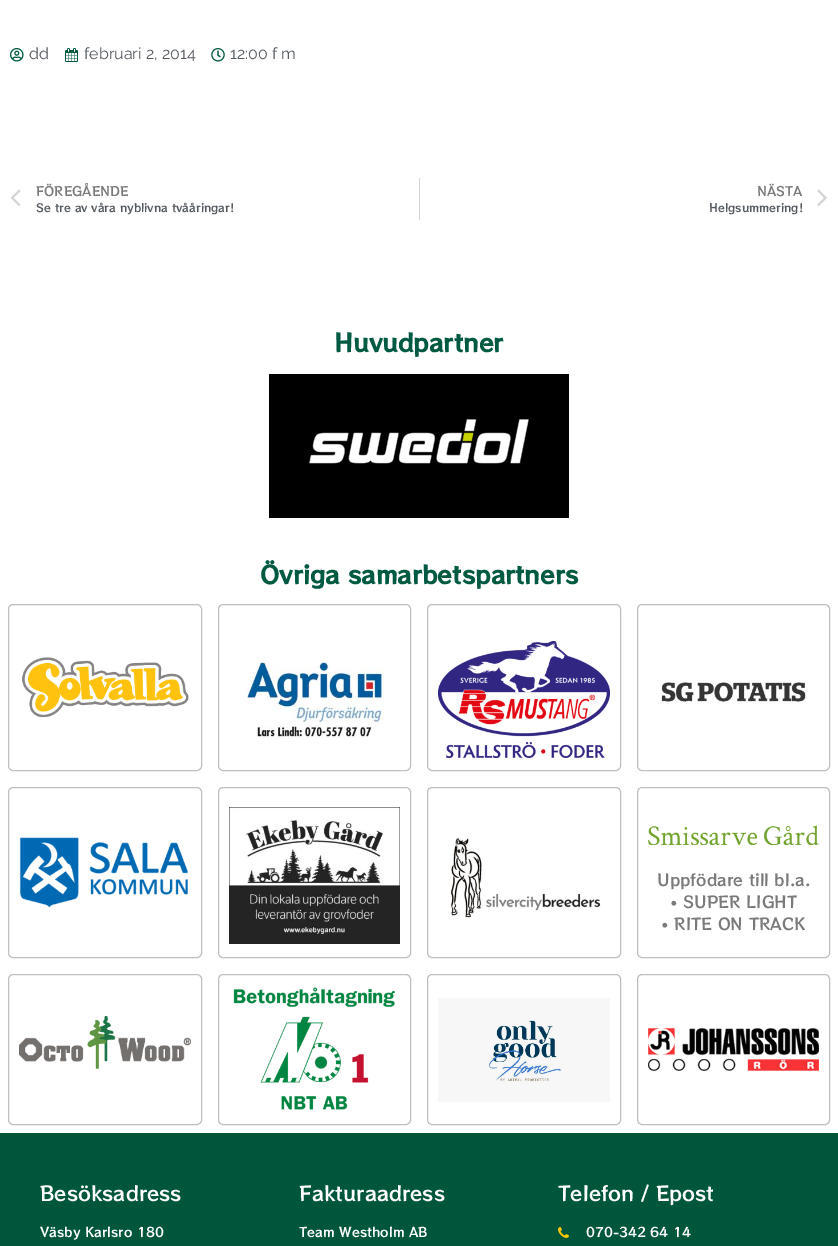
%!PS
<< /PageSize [838 1246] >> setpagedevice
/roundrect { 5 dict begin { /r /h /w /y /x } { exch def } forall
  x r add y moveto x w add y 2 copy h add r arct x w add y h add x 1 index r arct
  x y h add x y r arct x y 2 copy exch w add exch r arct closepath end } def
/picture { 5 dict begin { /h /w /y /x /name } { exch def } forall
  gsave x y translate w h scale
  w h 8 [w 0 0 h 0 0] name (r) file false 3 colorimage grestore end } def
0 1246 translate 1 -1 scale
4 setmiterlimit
1 setgray
0 0 838 1246 rectfill
(img1.rgb) 10 48 14 14 picture
/Raleway-Regular [16 0 0 -16 0 0] selectfont
0.329 0.349 0.373 setrgbcolor
29 59 moveto (dd) show
(img2.rgb) 65 48 13 14 picture
84 59 moveto (februari 2, 2014) show
(img3.rgb) 211 48 14 14 picture
230 59 moveto (12:00 f m) show
(img4.rgb) 10 189 11 17 picture
/RocknRollOne-Regular [12.75 0 0 -12.75 0 0] selectfont
0.478 setgray
36 196 moveto (FÖREGÅENDE) show
/RocknRollOne-Regular [11.25 0 0 -11.25 0 0] selectfont
0.329 0.349 0.373 setrgbcolor
36 212 moveto (Se tre av våra nyblivna tvååringar!) show
0.831 setgray
419 178 1 42 rectfill
/RocknRollOne-Regular [12.75 0 0 -12.75 0 0] selectfont
0.478 setgray
757 196 moveto (NÄSTA) show
/RocknRollOne-Regular [11.25 0 0 -11.25 0 0] selectfont
0.329 0.349 0.373 setrgbcolor
709 212 moveto (Helgsummering!) show
(img5.rgb) 817 189 10 18 picture
/RocknRollOne-Bold [24 0 0 -24 0 0] selectfont
0 0.349 0.255 setrgbcolor
334 352 moveto (Huvudpartner) show
(img6.rgb) 269 374 300 144 picture
260 584 moveto (Övriga samarbetspartners) show
0.749 setgray
8.5 604.5 193 166 4.5 roundrect stroke
(img7.rgb) 22 657 167 61 picture
218.5 604.5 192 166 4.5 roundrect stroke
(img8.rgb) 247 657 137 82 picture
427.5 604.5 193 166 4.5 roundrect stroke
(img9.rgb) 438 641 172 117 picture
637.5 604.5 192 166 4.5 roundrect stroke
(img10.rgb) 661 682 147 23 picture
8.5 787.5 193 170 4.5 roundrect stroke
(img11.rgb) 19 837 169 71 picture
218.5 787.5 192 170 4.5 roundrect stroke
(img12.rgb) 229 807 171 137 picture
427.5 787.5 193 170 4.5 roundrect stroke
(img13.rgb) 450 837 151 81 picture
637.5 787.5 192 170 4.5 roundrect stroke
(img14.rgb) 648 825 171 20 picture
/RocknRollOne-Regular [16 0 0 -16 0 0] selectfont
0.478 setgray
657 886 moveto (Uppfödare till bl.a.) show
670 908 moveto (• SUPER LIGHT) show
661 930 moveto (• RITE ON TRACK) show
0.749 setgray
8.5 974.5 193 150 4.5 roundrect stroke
(img15.rgb) 19 1016 172 53 picture
218.5 974.5 192 150 4.5 roundrect stroke
(img16.rgb) 233 987 162 123 picture
427.5 974.5 193 150 4.5 roundrect stroke
(img17.rgb) 438 998 172 104 picture
637.5 974.5 192 150 4.5 roundrect stroke
(img18.rgb) 648 1028 171 43 picture
0 0.337 0.227 setrgbcolor
0 1133 838 113 rectfill
/RocknRollOne-Regular [20 0 0 -20 0 0] selectfont
1 setgray
40 1201 moveto (Besöksadress) show
/RocknRollOne-Regular [13 0 0 -13 0 0] selectfont
40 1237 moveto (Väsby Karlsro 180) show
/RocknRollOne-Regular [20 0 0 -20 0 0] selectfont
299 1201 moveto (Fakturaadress) show
/RocknRollOne-Regular [13 0 0 -13 0 0] selectfont
299 1237 moveto (Team Westholm AB) show
/RocknRollOne-Regular [20 0 0 -20 0 0] selectfont
558 1201 moveto (Telefon / Epost) show
(img19.rgb) 558 1227 11 11 picture
/RocknRollOne-Regular [13 0 0 -13 0 0] selectfont
586 1237 moveto (070-342 64 14) show
showpage
